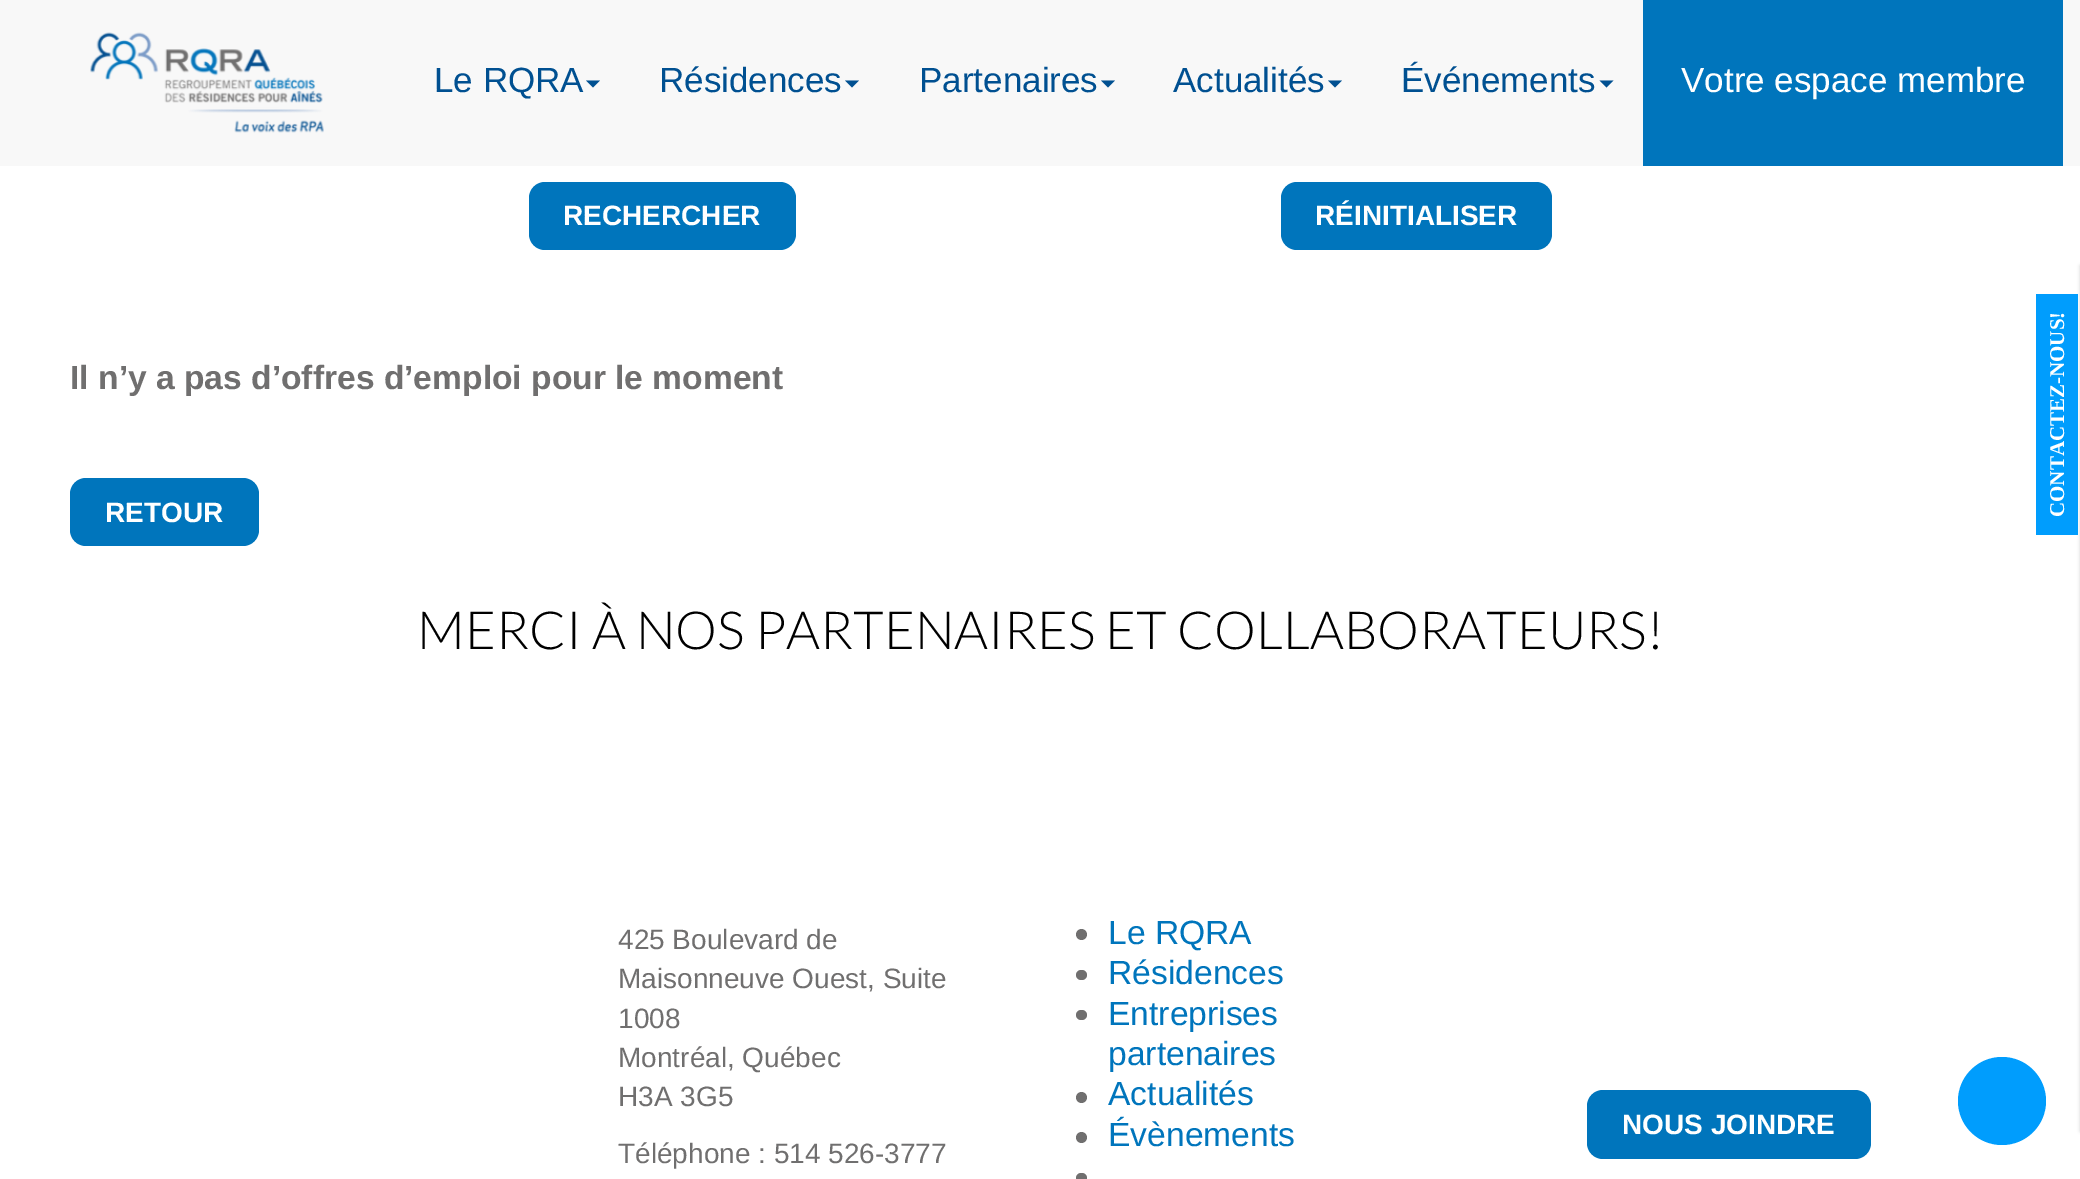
%!PS
<< /PageSize [2080 1179] /PageUsesTransparency true >> setpagedevice
/alpha { dup .setfillconstantalpha .setstrokeconstantalpha } def
/roundrect { 5 dict begin { /r /h /w /y /x } { exch def } forall
  x r add y moveto x w add y 2 copy h add r arct x w add y h add x 1 index r arct
  x y h add x y r arct x y 2 copy exch w add exch r arct closepath end } def
/shadow { 12 dict begin { /a /b /q /h /w /y /x } { exch def } forall gsave /was 0 def
  9 -2 -9 { dup b mul 4 div /e exch def 1 sub .425 mul 2.718 exch exp 1 add a .99 .min exch div /now exch def
    1 1 now sub 1 was sub div sub alpha /was now def
    w h .min e 2 mul add 0 gt { x e sub y e sub w e 2 mul add h e 2 mul add
      q e add b .6 mul add w h .min 2 div e add .min 0 .max roundrect fill } if } for grestore end } def
/picture { 5 dict begin { /h /w /y /x /name } { exch def } forall
  gsave x y translate w h scale
  w h 8 [w 0 0 h 0 0] name (r) file false 3 colorimage grestore end } def
0 .pushpdf14devicefilter
0 1179 translate 1 -1 scale
4 setmiterlimit
1 setgray
0 0 2080 1179 rectfill
0.973 setgray
0 0 2080 166 rectfill
(img1.rgb) 90 32 234 101 picture
/LiberationSans-Regular [35 0 0 -35 0 0] selectfont
0 0.314 0.569 setrgbcolor
434 92 moveto (Le RQRA) show
newpath 586 80.5 moveto 600 80.5 lineto 593 87.5 lineto closepath fill
659 92 moveto (Résidences) show
newpath 845 80.5 moveto 859 80.5 lineto 852 87.5 lineto closepath fill
919 92 moveto (Partenaires) show
newpath 1101 80.5 moveto 1115 80.5 lineto 1108 87.5 lineto closepath fill
1173 92 moveto (Actualités) show
newpath 1328 80.5 moveto 1342 80.5 lineto 1335 87.5 lineto closepath fill
1401 92 moveto (Événements) show
newpath 1599.5 80.5 moveto 1613.5 80.5 lineto 1606.5 87.5 lineto closepath fill
0 0.459 0.737 setrgbcolor
1643 0 420 166 rectfill
1 setgray
1681 92 moveto (Votre espace membre) show
0 0.459 0.737 setrgbcolor
529 182 267 68 16 roundrect fill
/LiberationSans-Bold [28 0 0 -28 0 0] selectfont
1 setgray
563 225 moveto (RECHERCHER) show
0 0.459 0.737 setrgbcolor
1281 182 271 68 16 roundrect fill
1 setgray
1315 225 moveto (RÉINITIALISER) show
/LiberationSans-Bold [33.6 0 0 -33.6 0 0] selectfont
0.439 0.435 0.435 setrgbcolor
70 389 moveto (Il n’y a pas d’offres d’emploi pour le moment) show
0 0.459 0.737 setrgbcolor
70 478 189 68 16 roundrect fill
/LiberationSans-Bold [28 0 0 -28 0 0] selectfont
1 setgray
105 522 moveto (RETOUR) show
0 setgray
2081 266 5 865 0 2 0.3 shadow
0 0.616 0.992 setrgbcolor
2036 294 42 241 rectfill
/LiberationSerif-Bold [21 0 0 -21 0 0] selectfont
1 setgray
gsave 2064 517 translate -90 rotate 0 0 moveto (CONTACTEZ-NOUS!) show grestore
/Lato-Light [52.5 0 0 -52.5 0 0] selectfont
0 setgray
417 649 moveto (MERCI À NOS PARTENAIRES ET COLLABORATEURS!) show
/LiberationSans-Regular [28 0 0 -28 0 0] selectfont
0.439 0.435 0.435 setrgbcolor
618 949 moveto (425 Boulevard de) show
618 988 moveto (Maisonneuve Ouest, Suite) show
618 1028 moveto (1008) show
618 1067 moveto (Montréal, Québec) show
618 1106 moveto (H3A 3G5) show
618 1163 moveto (Téléphone : 514 526-3777) show
newpath 1081.5 934.5 5.5 0 360 arc closepath fill
/LiberationSans-Regular [33.6 0 0 -33.6 0 0] selectfont
0 0.459 0.737 setrgbcolor
1108 944 moveto (Le RQRA) show
0.439 0.435 0.435 setrgbcolor
1076 970 11 10 5 roundrect fill
0 0.459 0.737 setrgbcolor
1108 984 moveto (Résidences) show
0.439 0.435 0.435 setrgbcolor
1076 1010 11 10 5 roundrect fill
0 0.459 0.737 setrgbcolor
1108 1025 moveto (Entreprises) show
1108 1065 moveto (partenaires) show
0.439 0.435 0.435 setrgbcolor
newpath 1081.5 1097.5 5.5 0 360 arc closepath fill
0 0.459 0.737 setrgbcolor
1108 1105 moveto (Actualités) show
0.439 0.435 0.435 setrgbcolor
newpath 1081.5 1137.5 5.5 0 360 arc closepath fill
0 0.459 0.737 setrgbcolor
1108 1146 moveto (Évènements) show
0.439 0.435 0.435 setrgbcolor
1076 1173 11 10 5 roundrect fill
0 0.459 0.737 setrgbcolor
1587 1090 284 69 16 roundrect fill
/LiberationSans-Bold [28 0 0 -28 0 0] selectfont
1 setgray
1622 1134 moveto (NOUS JOINDRE) show
0 0.616 0.992 setrgbcolor
newpath 2002 1101 44 0 360 arc closepath fill
.poppdf14devicefilter showpage
